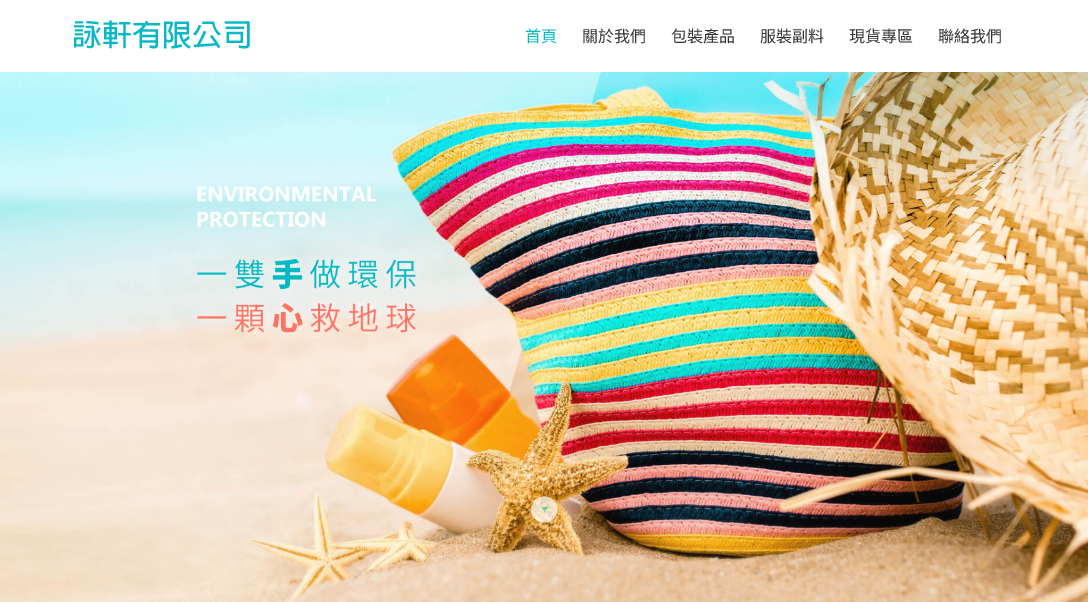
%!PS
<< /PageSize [1088 602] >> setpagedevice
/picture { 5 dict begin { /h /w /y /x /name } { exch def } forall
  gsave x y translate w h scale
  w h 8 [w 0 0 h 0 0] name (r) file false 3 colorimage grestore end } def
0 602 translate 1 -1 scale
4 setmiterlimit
1 setgray
0 0 1088 602 rectfill
(img1.rgb) 74 20 176 29 picture
/NotoSansCJKTC-Regular [16 0 0 -16 0 0] selectfont
0.016 0.722 0.776 setrgbcolor
525 42 moveto (首頁) show
0.2 setgray
582 42 moveto (關於我們) show
671 42 moveto (包裝產品) show
760 42 moveto (服裝副料) show
849 42 moveto (現貨專區) show
938 42 moveto (聯絡我們) show
(img2.rgb) 0 72 1088 530 picture
showpage
